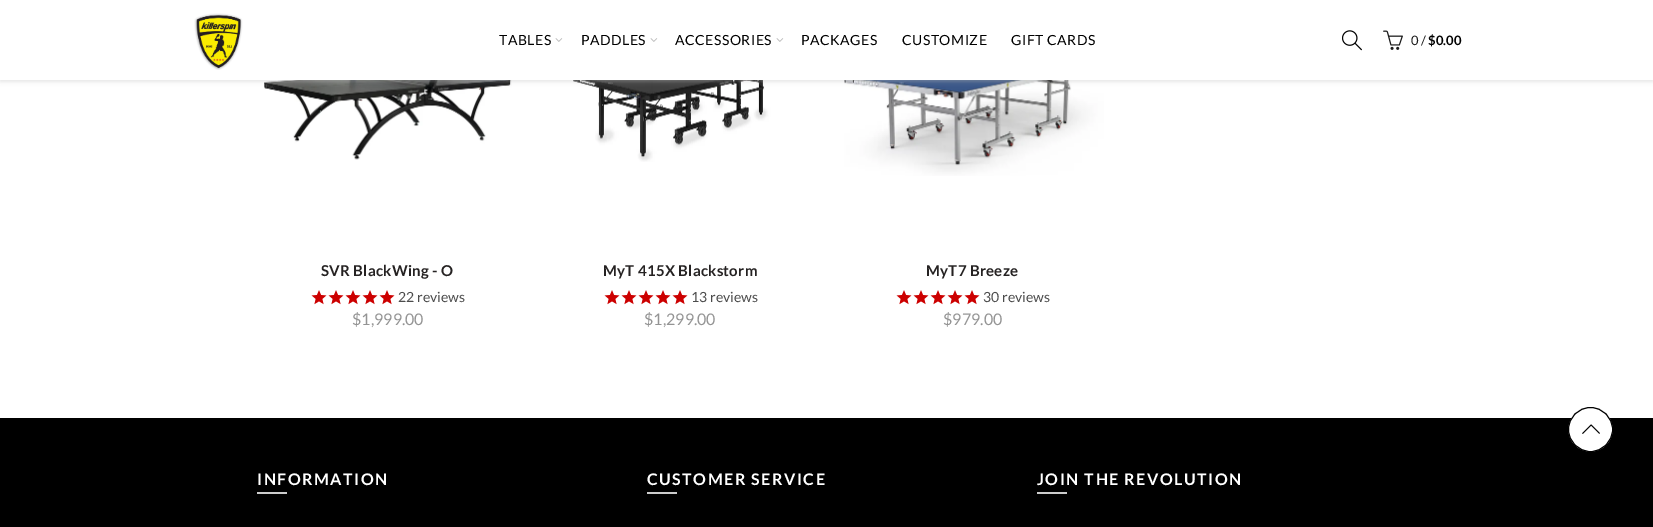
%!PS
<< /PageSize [1653 527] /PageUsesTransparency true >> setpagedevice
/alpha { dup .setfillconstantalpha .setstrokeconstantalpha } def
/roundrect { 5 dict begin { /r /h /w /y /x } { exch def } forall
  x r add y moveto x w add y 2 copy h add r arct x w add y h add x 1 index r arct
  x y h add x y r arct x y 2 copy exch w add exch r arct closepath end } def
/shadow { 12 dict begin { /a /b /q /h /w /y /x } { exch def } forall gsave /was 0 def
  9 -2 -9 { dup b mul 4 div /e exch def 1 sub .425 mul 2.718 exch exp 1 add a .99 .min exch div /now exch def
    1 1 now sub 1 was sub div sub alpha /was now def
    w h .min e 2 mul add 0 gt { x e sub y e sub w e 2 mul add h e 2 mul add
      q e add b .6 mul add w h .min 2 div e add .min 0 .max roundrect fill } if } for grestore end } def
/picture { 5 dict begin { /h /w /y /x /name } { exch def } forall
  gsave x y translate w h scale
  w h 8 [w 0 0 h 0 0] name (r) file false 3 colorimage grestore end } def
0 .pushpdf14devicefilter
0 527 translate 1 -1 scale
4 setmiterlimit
1 setgray
0 0 1653 527 rectfill
(img5.rgb) 264 80 248 80 picture
(img7.rgb) 573 80 216 82 picture
(img8.rgb) 844 80 260 96 picture
0.745 setgray
0 1 1653 80 0 2.5 0.5 shadow
1 setgray
0 0 1653 80 rectfill
(img1.rgb) 194 13 49 57 picture
/Lato-Regular [14 0 0 -14 0 0] selectfont
0 setgray
499 45 moveto 0.5 0 (TABLES) ashow
(img2.rgb) 555 38 8 4 picture
581 45 moveto 0.5 0 (PADDLES) ashow
(img2.rgb) 650 38 8 4 picture
675 45 moveto 0.5 0 (ACCESSORIES) ashow
(img2.rgb) 776 38 8 4 picture
801 45 moveto 0.5 0 (PACKAGES) ashow
902 45 moveto 0.5 0 (CUSTOMIZE) ashow
1011 45 moveto 0.5 0 (GIFT CARDS) ashow
(img3.rgb) 1342 30 20 21 picture
(img4.rgb) 1383 30 20 20 picture
/Lato-Regular [13 0 0 -13 0 0] selectfont
0.102 setgray
1411 45 moveto (0 /) show
/Lato-Bold [13 0 0 -13 0 0] selectfont
0 setgray
1428 45 moveto ($0.00) show
/Lato-Bold [15 0 0 -15 0 0] selectfont
0.145 0.133 0.133 setrgbcolor
321 276 moveto 0.25 0 (SVR BlackWing - O) ashow
(img6.rgb) 311 290 16 15 picture
(img6.rgb) 328 290 16 15 picture
(img6.rgb) 345 290 16 15 picture
(img6.rgb) 362 290 16 15 picture
(img6.rgb) 379 290 16 15 picture
/Lato-Regular [14 0 0 -14 0 0] selectfont
0.298 setgray
398 302 moveto (22 reviews) show
/Lato-Regular [16 0 0 -16 0 0] selectfont
0.58 setgray
352 325 moveto ($1,999.00) show
/Lato-Bold [15 0 0 -15 0 0] selectfont
0.145 0.133 0.133 setrgbcolor
603 276 moveto 0.25 0 (MyT 415X Blackstorm) ashow
(img6.rgb) 604 290 16 15 picture
(img6.rgb) 621 290 16 15 picture
(img6.rgb) 638 290 16 15 picture
(img6.rgb) 655 290 16 15 picture
(img6.rgb) 672 290 16 15 picture
/Lato-Regular [14 0 0 -14 0 0] selectfont
0.298 setgray
691 302 moveto (13 reviews) show
/Lato-Regular [16 0 0 -16 0 0] selectfont
0.58 setgray
644 325 moveto ($1,299.00) show
/Lato-Bold [15 0 0 -15 0 0] selectfont
0.145 0.133 0.133 setrgbcolor
926 276 moveto 0.25 0 (MyT7 Breeze) ashow
(img6.rgb) 896 290 16 15 picture
(img6.rgb) 913 290 16 15 picture
(img6.rgb) 930 290 16 15 picture
(img6.rgb) 947 290 16 15 picture
(img6.rgb) 964 290 16 15 picture
/Lato-Regular [14 0 0 -14 0 0] selectfont
0.298 setgray
983 302 moveto (30 reviews) show
/Lato-Regular [16 0 0 -16 0 0] selectfont
0.58 setgray
943 325 moveto ($979.00) show
0 setgray
0 418 1653 109 rectfill
/Lato-Bold [16 0 0 -16 0 0] selectfont
1 setgray
257 485 moveto 1.5 0 (INFORMATION) ashow
0.8 setgray
257 492 30 2 rectfill
1 setgray
647 485 moveto 1.5 0 (CUSTOMER SERVICE) ashow
0.8 setgray
647 492 30 2 rectfill
1 setgray
1037 485 moveto 1.5 0 (JOIN THE REVOLUTION) ashow
0.8 setgray
1037 492 30 2 rectfill
1 setgray
newpath 1590.5 429.5 22 0 360 arc closepath gsave fill grestore
0 setgray
stroke
(img9.rgb) 1582 424 18 10 picture
.poppdf14devicefilter showpage
